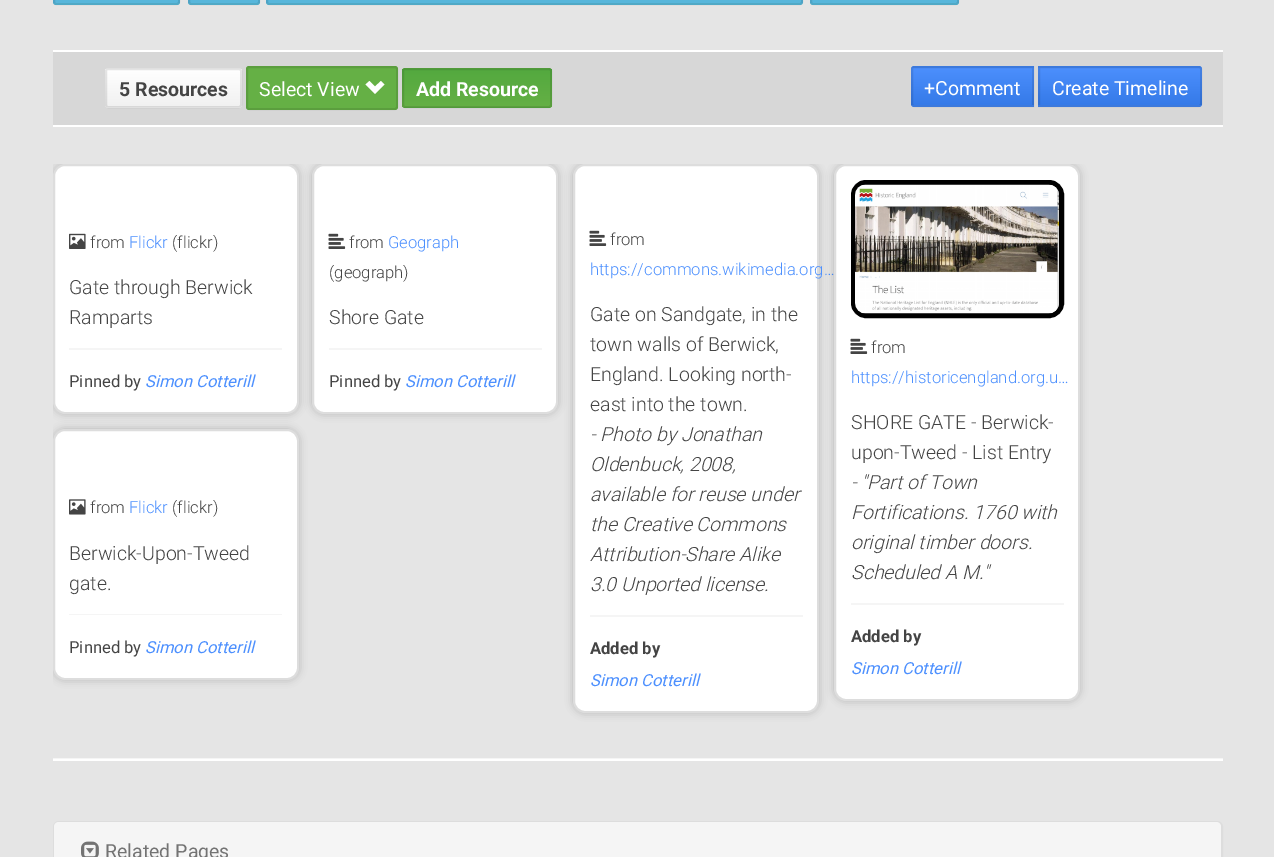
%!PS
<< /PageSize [1274 857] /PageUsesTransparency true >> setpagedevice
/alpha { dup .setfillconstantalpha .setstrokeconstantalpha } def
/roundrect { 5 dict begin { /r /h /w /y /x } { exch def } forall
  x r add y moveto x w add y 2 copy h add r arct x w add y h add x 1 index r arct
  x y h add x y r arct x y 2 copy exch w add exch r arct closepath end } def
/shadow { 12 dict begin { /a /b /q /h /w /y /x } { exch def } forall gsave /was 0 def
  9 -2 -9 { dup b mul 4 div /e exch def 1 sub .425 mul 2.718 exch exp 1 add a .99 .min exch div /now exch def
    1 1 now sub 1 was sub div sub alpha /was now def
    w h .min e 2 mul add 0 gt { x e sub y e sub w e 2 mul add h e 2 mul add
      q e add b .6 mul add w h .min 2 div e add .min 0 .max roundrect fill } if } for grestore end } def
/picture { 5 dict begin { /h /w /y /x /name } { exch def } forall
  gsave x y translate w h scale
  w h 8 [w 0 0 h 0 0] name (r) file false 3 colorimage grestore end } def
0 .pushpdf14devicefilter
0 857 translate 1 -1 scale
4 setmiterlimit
0.898 setgray
0 0 1274 857 rectfill
0.349 0.737 0.867 setrgbcolor
53 -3 127 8 3 roundrect fill
gsave newpath 53 0 moveto 180 0 lineto 180 3 lineto 53 3 lineto closepath clip newpath
<< /ShadingType 2 /ColorSpace /DeviceRGB /Coords [116 -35 116 3] /Extend [true true] /Function << /FunctionType 2 /Domain [0 1] /C0 [0.357 0.753 0.871] /C1 [0.341 0.714 0.859] /N 1 >> >> shfill grestore
0.1 alpha
0 setgray
2 setlinewidth
54 -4 125 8 2 roundrect stroke
1 alpha
0.349 0.737 0.867 setrgbcolor
188 -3 72 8 3 roundrect fill
gsave newpath 188 0 moveto 260 0 lineto 260 3 lineto 188 3 lineto closepath clip newpath
<< /ShadingType 2 /ColorSpace /DeviceRGB /Coords [224 -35 224 3] /Extend [true true] /Function << /FunctionType 2 /Domain [0 1] /C0 [0.357 0.753 0.871] /C1 [0.341 0.714 0.859] /N 1 >> >> shfill grestore
0.1 alpha
0 setgray
189 -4 70 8 2 roundrect stroke
1 alpha
0.349 0.737 0.867 setrgbcolor
266 -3 537 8 3 roundrect fill
gsave newpath 266 0 moveto 803 0 lineto 803 3 lineto 266 3 lineto closepath clip newpath
<< /ShadingType 2 /ColorSpace /DeviceRGB /Coords [534 -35 534 3] /Extend [true true] /Function << /FunctionType 2 /Domain [0 1] /C0 [0.357 0.753 0.871] /C1 [0.341 0.714 0.859] /N 1 >> >> shfill grestore
0.1 alpha
0 setgray
267 -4 535 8 2 roundrect stroke
1 alpha
0.349 0.737 0.867 setrgbcolor
810 -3 149 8 3 roundrect fill
gsave newpath 810 0 moveto 959 0 lineto 959 3 lineto 810 3 lineto closepath clip newpath
<< /ShadingType 2 /ColorSpace /DeviceRGB /Coords [884 -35 884 3] /Extend [true true] /Function << /FunctionType 2 /Domain [0 1] /C0 [0.357 0.753 0.871] /C1 [0.341 0.714 0.859] /N 1 >> >> shfill grestore
0.1 alpha
0 setgray
811 -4 147 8 2 roundrect stroke
1 alpha
0.843 setgray
53 52 1170 73 rectfill
1 setgray
53 50 1170 2 rectfill
53 125 1170 2 rectfill
0.976 setgray
105 68 137 40 3 roundrect fill
gsave
105 68 137 40 3 roundrect clip newpath
gsave newpath 105 69 moveto 242 69 lineto 242 107 lineto 105 107 lineto closepath clip newpath
<< /ShadingType 2 /ColorSpace /DeviceRGB /Coords [173 69 173 107] /Extend [true true] /Function << /FunctionType 2 /Domain [0 1] /C0 [1 1 1] /C1 [0.945 0.945 0.945] /N 1 >> >> shfill grestore
grestore
0.1 alpha
0 setgray
106 69 135 38 2 roundrect stroke
/Roboto-Bold [19.5 0 0 -19.5 0 0] selectfont
1 alpha
0.267 setgray
119 96 moveto (5 Resources) show
0.396 0.69 0.271 setrgbcolor
246 66 152 44 3 roundrect fill
0.1 alpha
0 setgray
247 67 150 42 2 roundrect stroke
/Roboto-Regular [19.5 0 0 -19.5 0 0] selectfont
1 alpha
1 setgray
259 96 moveto (Select View) show
newpath 365.5 84.5 moveto 375 94 lineto 384.5 84.5 lineto 381 81 lineto 375 86.5 lineto 369.5 81 lineto closepath fill
0.353 0.675 0.255 setrgbcolor
402 68 150 40 3 roundrect fill
gsave
402 68 150 40 3 roundrect clip newpath
gsave newpath 402 69 moveto 552 69 lineto 552 107 lineto 402 107 lineto closepath clip newpath
<< /ShadingType 2 /ColorSpace /DeviceRGB /Coords [477 69 477 107] /Extend [true true] /Function << /FunctionType 2 /Domain [0 1] /C0 [0.325 0.663 0.247] /C1 [0.396 0.69 0.271] /N 1 >> >> shfill grestore
grestore
0.1 alpha
0 setgray
403 69 148 38 2 roundrect stroke
/Roboto-Bold [19.5 0 0 -19.5 0 0] selectfont
1 alpha
1 setgray
416 96 moveto (Add Resource) show
0.263 0.529 0.961 setrgbcolor
newpath 914 66 moveto 1034 66 lineto 1034 107 lineto 914 107 lineto 912.5 107 911 105.5 911 104 curveto 911 69 lineto 911 67.5 912.5 66 914 66 curveto closepath fill
gsave newpath 911 68 moveto 1034 68 lineto 1034 105 lineto 911 105 lineto closepath clip newpath
<< /ShadingType 2 /ColorSpace /DeviceRGB /Coords [972 67 972 105] /Extend [true true] /Function << /FunctionType 2 /Domain [0 1] /C0 [0.302 0.565 0.996] /C1 [0.208 0.478 0.91] /N 1 >> >> shfill grestore
0.1 alpha
0 setgray
newpath 914 67 moveto 1033 67 lineto 1033 106 lineto 914 106 lineto 913 106 912 105 912 104 curveto 912 69 lineto 912 68 913 67 914 67 curveto closepath stroke
/Roboto-Regular [19.5 0 0 -19.5 0 0] selectfont
1 alpha
1 setgray
924 95 moveto (+Comment) show
0.263 0.529 0.961 setrgbcolor
newpath 1038 66 moveto 1199 66 lineto 1200.5 66 1202 67.5 1202 69 curveto 1202 104 lineto 1202 105.5 1200.5 107 1199 107 curveto 1038 107 lineto closepath fill
gsave newpath 1038 68 moveto 1202 68 lineto 1202 105 lineto 1038 105 lineto closepath clip newpath
<< /ShadingType 2 /ColorSpace /DeviceRGB /Coords [1120 67 1120 105] /Extend [true true] /Function << /FunctionType 2 /Domain [0 1] /C0 [0.302 0.565 0.996] /C1 [0.208 0.478 0.91] /N 1 >> >> shfill grestore
0.1 alpha
0 setgray
newpath 1039 67 moveto 1199 67 lineto 1200 67 1201 68 1201 69 curveto 1201 104 lineto 1201 105 1200 106 1199 106 curveto 1039 106 lineto closepath stroke
1 alpha
1 setgray
1052 95 moveto (Create Timeline) show
gsave
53 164 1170 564 rectclip
0 setgray
53 164 246 250 12 4 0.2 shadow
grestore
54 165 244 248 11 roundrect gsave fill grestore
0.867 setgray
stroke
(img1.rgb) 69 233 17 16 picture
/Roboto-Light [16.6 0 0 -16.6 0 0] selectfont
0.267 setgray
90 248 moveto (from) show
0.302 0.565 0.996 setrgbcolor
129 248 moveto (Flickr) show
0.267 setgray
172 248 moveto (\(flickr\)) show
/Roboto-Light [19.5 0 0 -19.5 0 0] selectfont
69 294 moveto (Gate through Berwick) show
69 324 moveto (Ramparts) show
0.961 setgray
69 348 213 2 rectfill
/Roboto-Regular [16.6 0 0 -16.6 0 0] selectfont
0.267 setgray
69 387 moveto (Pinned by) show
/Roboto-Italic [16.6 0 0 -16.6 0 0] selectfont
0.302 0.565 0.996 setrgbcolor
145 387 moveto (Simon Cotterill) show
gsave
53 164 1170 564 rectclip
0 setgray
312 164 246 250 12 4 0.2 shadow
grestore
1 setgray
313 165 244 248 11 roundrect gsave fill grestore
0.867 setgray
stroke
(img2.rgb) 328 233 18 16 picture
/Roboto-Light [16.6 0 0 -16.6 0 0] selectfont
0.267 setgray
349 248 moveto (from) show
0.302 0.565 0.996 setrgbcolor
388 248 moveto (Geograph) show
0.267 setgray
329 278 moveto (\(geograph\)) show
/Roboto-Light [19.5 0 0 -19.5 0 0] selectfont
329 324 moveto (Shore Gate) show
0.961 setgray
329 348 213 2 rectfill
/Roboto-Regular [16.6 0 0 -16.6 0 0] selectfont
0.267 setgray
329 387 moveto (Pinned by) show
/Roboto-Italic [16.6 0 0 -16.6 0 0] selectfont
0.302 0.565 0.996 setrgbcolor
405 387 moveto (Simon Cotterill) show
gsave
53 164 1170 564 rectclip
0 setgray
573 164 246 549 12 4 0.2 shadow
grestore
1 setgray
574 165 244 547 11 roundrect gsave fill grestore
0.867 setgray
stroke
(img2.rgb) 589 230 18 16 picture
/Roboto-Light [16.6 0 0 -16.6 0 0] selectfont
0.267 setgray
610 245 moveto (from) show
0.302 0.565 0.996 setrgbcolor
590 275 moveto (https://commons.wikimedia.org…) show
/Roboto-Light [19.5 0 0 -19.5 0 0] selectfont
0.267 setgray
590 321 moveto (Gate on Sandgate, in the) show
590 351 moveto (town walls of Berwick,) show
590 381 moveto (England. Looking north-) show
590 411 moveto (east into the town.) show
/Roboto-LightItalic [19.5 0 0 -19.5 0 0] selectfont
590 441 moveto (- Photo by Jonathan) show
590 471 moveto (Oldenbuck, 2008,) show
590 501 moveto (available for reuse under) show
590 531 moveto (the Creative Commons) show
590 561 moveto (Attribution-Share Alike) show
590 591 moveto (3.0 Unported license.) show
0.961 setgray
590 615 213 2 rectfill
/Roboto-Bold [16.6 0 0 -16.6 0 0] selectfont
0.267 setgray
590 654 moveto (Added by) show
/Roboto-Italic [16.6 0 0 -16.6 0 0] selectfont
0.302 0.565 0.996 setrgbcolor
590 686 moveto (Simon Cotterill) show
gsave
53 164 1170 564 rectclip
0 setgray
53 429 246 251 12 4 0.2 shadow
grestore
1 setgray
54 430 244 249 11 roundrect gsave fill grestore
0.867 setgray
stroke
(img3.rgb) 69 499 17 16 picture
/Roboto-Light [16.6 0 0 -16.6 0 0] selectfont
0.267 setgray
90 513 moveto (from) show
0.302 0.565 0.996 setrgbcolor
129 513 moveto (Flickr) show
0.267 setgray
172 513 moveto (\(flickr\)) show
/Roboto-Light [19.5 0 0 -19.5 0 0] selectfont
69 560 moveto (Berwick-Upon-Tweed) show
69 590 moveto (gate.) show
0.961 setgray
69 614 213 1 rectfill
/Roboto-Regular [16.6 0 0 -16.6 0 0] selectfont
0.267 setgray
69 653 moveto (Pinned by) show
/Roboto-Italic [16.6 0 0 -16.6 0 0] selectfont
0.302 0.565 0.996 setrgbcolor
145 653 moveto (Simon Cotterill) show
gsave
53 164 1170 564 rectclip
0 setgray
834 164 246 537 12 4 0.2 shadow
grestore
1 setgray
835 165 244 535 11 roundrect gsave fill grestore
0.867 setgray
stroke
0 setgray
5 setlinewidth
853.5 182.5 208 133 12.5 roundrect stroke
(img4.rgb) 855 184 204 130 picture
(img2.rgb) 850 338 18 16 picture
/Roboto-Light [16.6 0 0 -16.6 0 0] selectfont
0.267 setgray
871 353 moveto (from) show
0.302 0.565 0.996 setrgbcolor
851 383 moveto (https://historicengland.org.u…) show
/Roboto-Light [19.5 0 0 -19.5 0 0] selectfont
0.267 setgray
851 429 moveto (SHORE GATE - Berwick-) show
851 459 moveto (upon-Tweed - List Entry) show
/Roboto-LightItalic [19.5 0 0 -19.5 0 0] selectfont
851 489 moveto (- "Part of Town) show
851 519 moveto (Fortifications. 1760 with) show
851 549 moveto (original timber doors.) show
851 579 moveto (Scheduled A M.") show
0.961 setgray
851 603 213 2 rectfill
/Roboto-Bold [16.6 0 0 -16.6 0 0] selectfont
0.267 setgray
851 642 moveto (Added by) show
/Roboto-Italic [16.6 0 0 -16.6 0 0] selectfont
0.302 0.565 0.996 setrgbcolor
851 674 moveto (Simon Cotterill) show
0.961 setgray
53 758 1170 1 rectfill
1 setgray
53 759 1170 2 rectfill
0.867 setgray
2 setlinewidth
54 822 1168 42 5 roundrect stroke
0.961 setgray
newpath 59 822 moveto 1216 822 lineto 1219 822 1221 824 1221 827 curveto 1221 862 lineto 54 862 lineto 54 827 lineto 54 824 56 822 59 822 curveto closepath fill
(img5.rgb) 81 841 18 16 picture
/Roboto-Regular [19.5 0 0 -19.5 0 0] selectfont
0.451 setgray
105 858 moveto (Related Pages) show
.poppdf14devicefilter showpage
